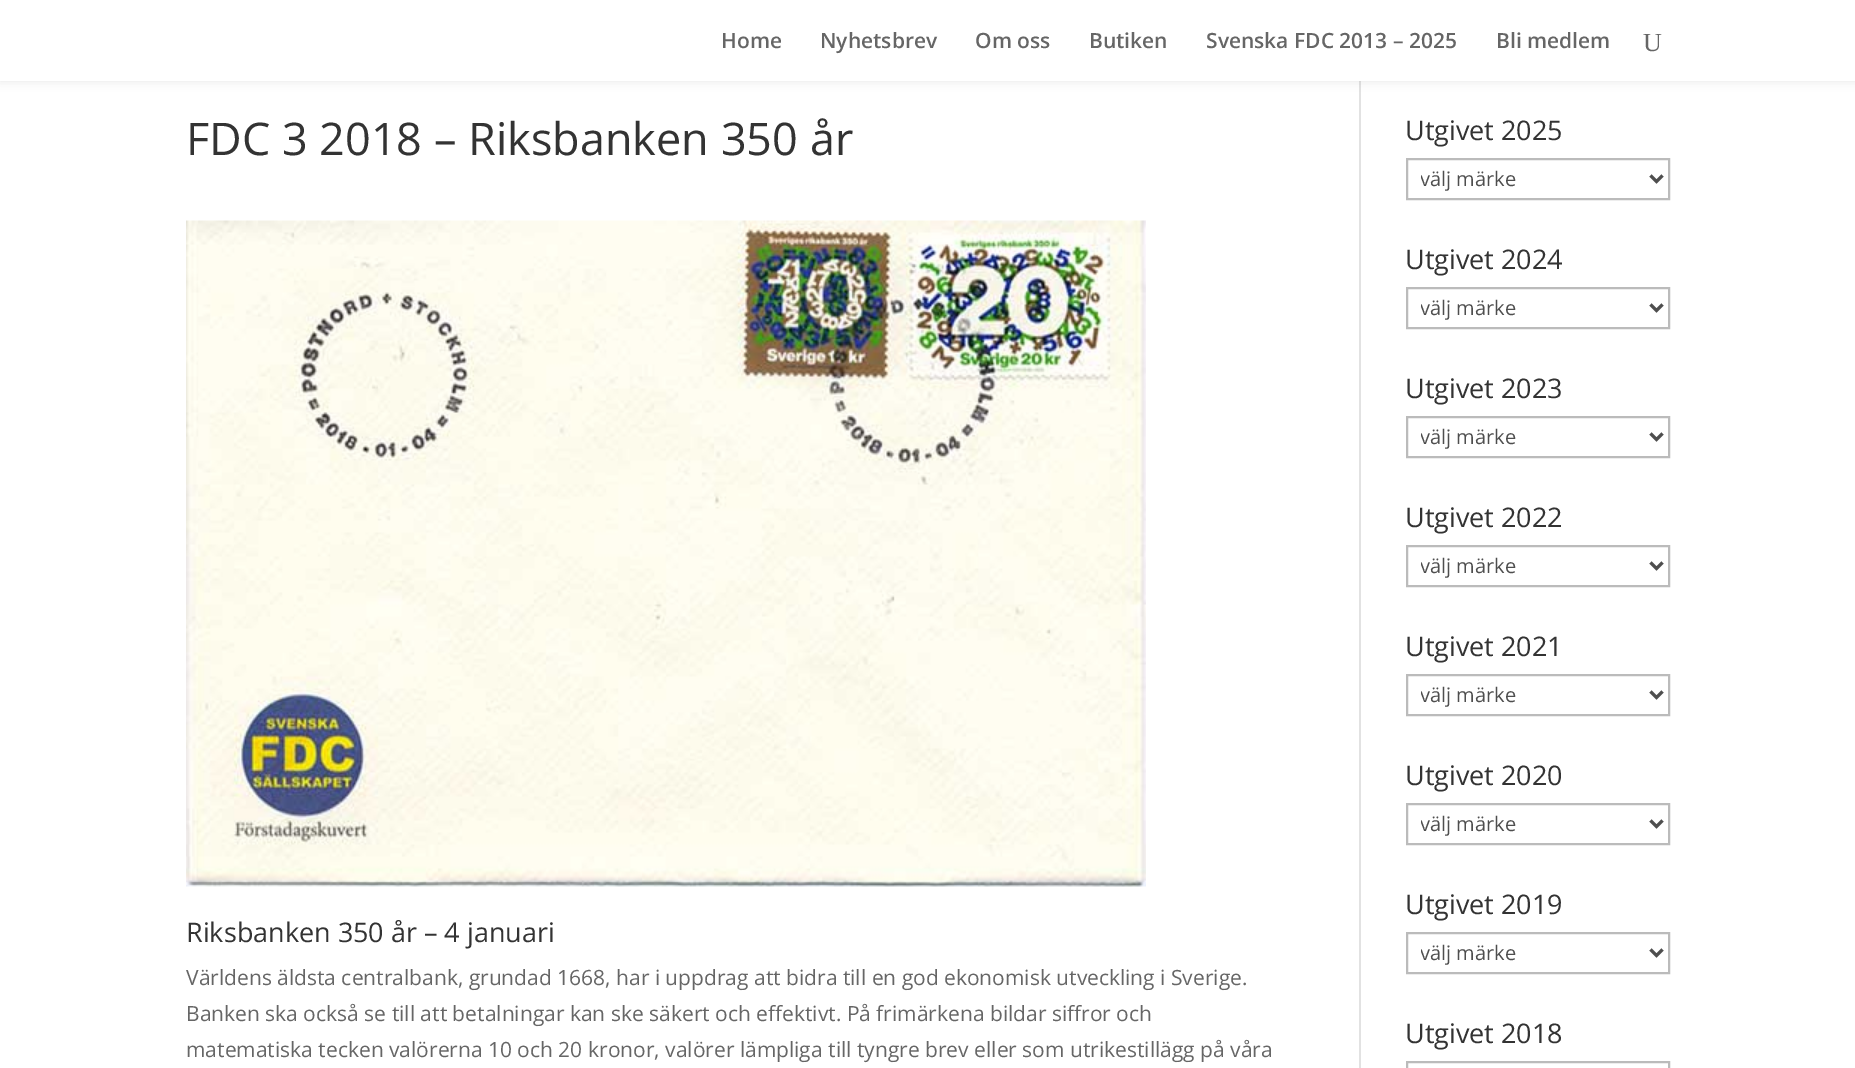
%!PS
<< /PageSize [1855 1068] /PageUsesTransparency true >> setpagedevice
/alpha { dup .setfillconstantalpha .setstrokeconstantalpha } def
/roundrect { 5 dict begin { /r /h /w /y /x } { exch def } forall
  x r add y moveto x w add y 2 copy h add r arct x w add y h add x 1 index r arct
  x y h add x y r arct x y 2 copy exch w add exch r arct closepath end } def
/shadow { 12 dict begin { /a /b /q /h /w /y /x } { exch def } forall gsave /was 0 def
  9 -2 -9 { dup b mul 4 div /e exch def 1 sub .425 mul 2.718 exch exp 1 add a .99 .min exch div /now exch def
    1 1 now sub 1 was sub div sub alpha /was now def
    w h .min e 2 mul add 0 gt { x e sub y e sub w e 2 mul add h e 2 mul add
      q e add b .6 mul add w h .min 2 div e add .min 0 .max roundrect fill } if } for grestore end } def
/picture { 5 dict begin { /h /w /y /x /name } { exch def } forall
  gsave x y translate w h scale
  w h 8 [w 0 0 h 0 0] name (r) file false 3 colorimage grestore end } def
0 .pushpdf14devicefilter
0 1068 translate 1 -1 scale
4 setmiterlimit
1 setgray
0 0 1855 1068 rectfill
0.886 setgray
1359 81 2 987 rectfill
0 setgray
0 0 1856 81 0 5 0.1 shadow
1 setgray
0 0 1855 81 rectfill
/OpenSans-SemiBold [21 0 0 -21 0 0] selectfont
0.4 setgray
721 48 moveto (Home) show
820 48 moveto (Nyhetsbrev) show
975 48 moveto (Om oss) show
1089 48 moveto (Butiken) show
1206 48 moveto (Svenska FDC 2013 – 2025) show
1496 48 moveto (Bli medlem) show
/LiberationSerif-Regular [26 0 0 -26 0 0] selectfont
1643 51 moveto (U) show
/OpenSans-Regular [45 0 0 -45 0 0] selectfont
0.2 setgray
186 155 moveto (FDC 3 2018 – Riksbanken 350 år) show
(img1.rgb) 186 220 960 667 picture
/OpenSans-Regular [27 0 0 -27 0 0] selectfont
186 942 moveto (Riksbanken 350 år – 4 januari) show
/OpenSans-Regular [21 0 0 -21 0 0] selectfont
0.4 setgray
186 985 moveto (Världens äldsta centralbank, grundad 1668, har i uppdrag att bidra till en god ekonomisk utveckling i Sverige.) show
186 1021 moveto (Banken ska också se till att betalningar kan ske säkert och effektivt. På frimärkena bildar siffror och) show
186 1057 moveto (matematiska tecken valörerna 10 och 20 kronor, valörer lämpliga till tyngre brev eller som utrikestillägg på våra) show
/OpenSans-Regular [27 0 0 -27 0 0] selectfont
0.2 setgray
1405 140 moveto (Utgivet 2025) show
0.733 setgray
2 setlinewidth
1407 159 262 40 rectstroke
0.306 setgray
3 setlinewidth
newpath 1650.5 175.5 moveto 1656.5 181.5 lineto 1662.5 175.5 lineto stroke
gsave
1421 164 216 30 rectclip
/OpenSans-Regular [20 0 0 -20 0 0] selectfont
1420 186 moveto (välj märke) show
grestore
0.2 setgray
1405 269 moveto (Utgivet 2024) show
0.733 setgray
2 setlinewidth
1407 288 262 40 rectstroke
0.306 setgray
3 setlinewidth
newpath 1650.5 304.5 moveto 1656.5 310.5 lineto 1662.5 304.5 lineto stroke
gsave
1421 293 216 30 rectclip
/OpenSans-Regular [20 0 0 -20 0 0] selectfont
1420 315 moveto (välj märke) show
grestore
0.2 setgray
1405 398 moveto (Utgivet 2023) show
0.733 setgray
2 setlinewidth
1407 417 262 40 rectstroke
0.306 setgray
3 setlinewidth
newpath 1650.5 433.5 moveto 1656.5 439.5 lineto 1662.5 433.5 lineto stroke
gsave
1421 422 216 30 rectclip
/OpenSans-Regular [20 0 0 -20 0 0] selectfont
1420 444 moveto (välj märke) show
grestore
0.2 setgray
1405 527 moveto (Utgivet 2022) show
0.733 setgray
2 setlinewidth
1407 546 262 40 rectstroke
0.306 setgray
3 setlinewidth
newpath 1650.5 562.5 moveto 1656.5 568.5 lineto 1662.5 562.5 lineto stroke
gsave
1421 551 216 30 rectclip
/OpenSans-Regular [20 0 0 -20 0 0] selectfont
1420 573 moveto (välj märke) show
grestore
0.2 setgray
1405 656 moveto (Utgivet 2021) show
0.733 setgray
2 setlinewidth
1407 675 262 40 rectstroke
0.306 setgray
3 setlinewidth
newpath 1650.5 691.5 moveto 1656.5 697.5 lineto 1662.5 691.5 lineto stroke
gsave
1421 680 216 30 rectclip
/OpenSans-Regular [20 0 0 -20 0 0] selectfont
1420 702 moveto (välj märke) show
grestore
0.2 setgray
1405 785 moveto (Utgivet 2020) show
0.733 setgray
2 setlinewidth
1407 804 262 40 rectstroke
0.306 setgray
3 setlinewidth
newpath 1650.5 820.5 moveto 1656.5 826.5 lineto 1662.5 820.5 lineto stroke
gsave
1421 809 216 30 rectclip
/OpenSans-Regular [20 0 0 -20 0 0] selectfont
1420 831 moveto (välj märke) show
grestore
0.2 setgray
1405 914 moveto (Utgivet 2019) show
0.733 setgray
2 setlinewidth
1407 933 262 40 rectstroke
0.306 setgray
3 setlinewidth
newpath 1650.5 949.5 moveto 1656.5 955.5 lineto 1662.5 949.5 lineto stroke
gsave
1421 938 216 30 rectclip
/OpenSans-Regular [20 0 0 -20 0 0] selectfont
1420 960 moveto (välj märke) show
grestore
0.2 setgray
1405 1043 moveto (Utgivet 2018) show
0.733 setgray
2 setlinewidth
1407 1062 262 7 rectstroke
.poppdf14devicefilter showpage
